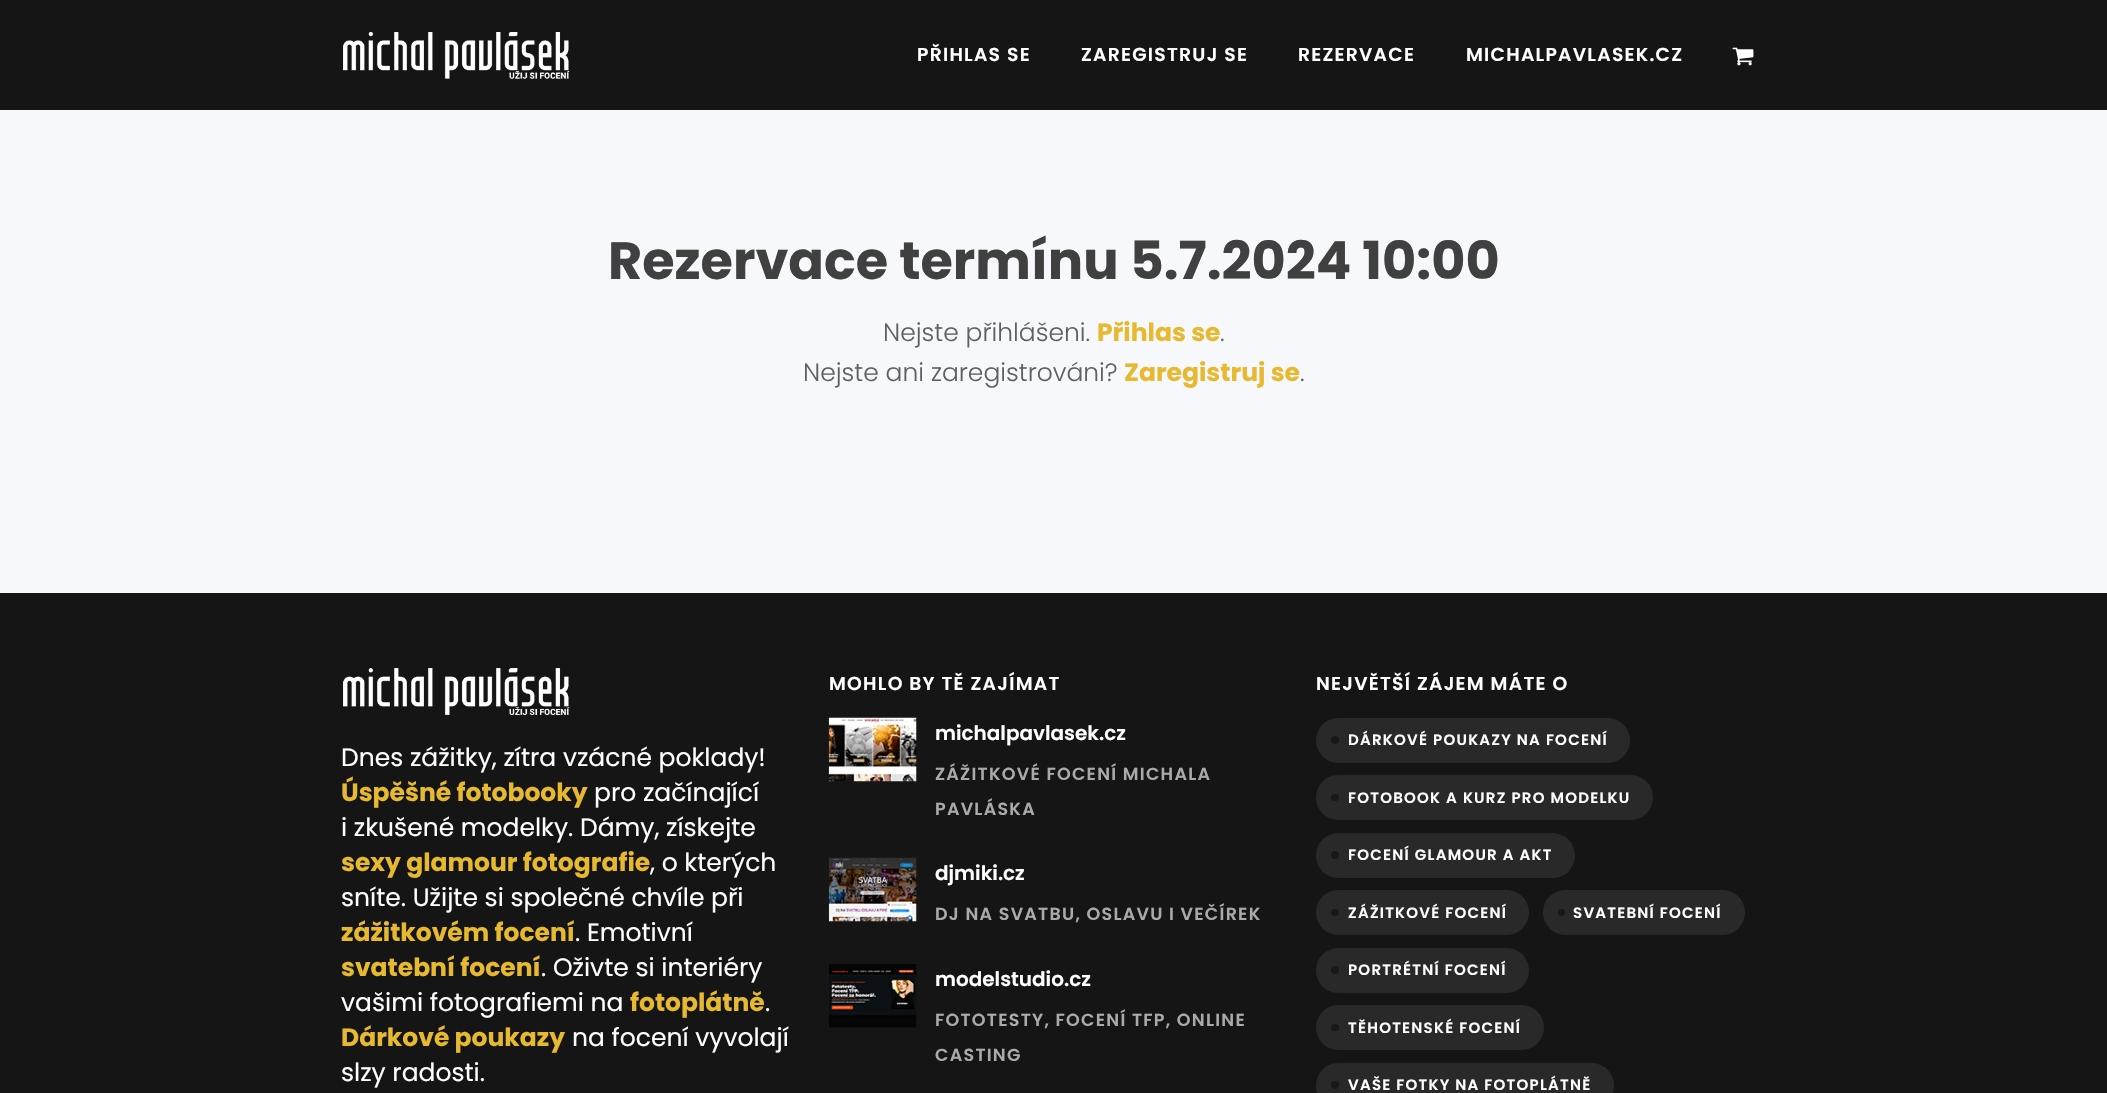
#include "include/core/SkBlurTypes.h"
#include "include/core/SkCanvas.h"
#include "include/core/SkData.h"
#include "include/core/SkFont.h"
#include "include/core/SkFontMgr.h"
#include "include/core/SkImage.h"
#include "include/core/SkMaskFilter.h"
#include "include/core/SkPaint.h"
#include "include/core/SkPathBuilder.h"
#include "include/core/SkTextBlob.h"
#include "include/effects/SkDashPathEffect.h"
#include "include/effects/SkGradientShader.h"
#include "include/utils/SkParsePath.h"

extern sk_sp<SkFontMgr> fontMgr;

static SkFont font(const char* family, int weight, float size, bool italic = false) {
    SkFontStyle style(weight, SkFontStyle::kNormal_Width,
        italic ? SkFontStyle::kItalic_Slant : SkFontStyle::kUpright_Slant);
    SkFont result(fontMgr->matchFamilyStyle(family, style), size);
    result.setSubpixel(true);
    return result;
}

static void drawLabel(SkCanvas* canvas, const char* s, float x, float y, const SkFont& font, SkColor color) {
    SkPaint ink(SkColor4f::FromColor(color));
    ink.setAntiAlias(true);
    canvas->drawString(s, x, y, font, ink);
}

static void drawTracked(SkCanvas* canvas, const char* s, float x, float y, const SkFont& font, const SkPaint& ink, float letter, float word) {
    std::vector<SkGlyphID> glyphs(font.countText(s, strlen(s), SkTextEncoding::kUTF8));
    std::vector<float> xs(glyphs.size());
    font.textToGlyphs(s, strlen(s), SkTextEncoding::kUTF8, glyphs);
    font.getXPos(glyphs, xs, x);
    float extra = 0;
    for (size_t i = 0; i < glyphs.size(); i++) {
        xs[i] += extra;
        extra += letter + word * (glyphs[i] == font.unicharToGlyph(' '));
    }
    canvas->drawTextBlob(SkTextBlob::MakeFromPosHGlyphs(glyphs, xs, y, font), 0, 0, ink);
}

static void fillRect(SkCanvas* canvas, float x, float y, float w, float h, SkColor color) {
    SkPaint ink(SkColor4f::FromColor(color));
    ink.setAntiAlias(true);
    canvas->drawRect(SkRect::MakeXYWH(x, y, w, h), ink);
}

static void fillRRect(SkCanvas* canvas, float x, float y, float w, float h, float radius, SkColor color) {
    SkPaint ink(SkColor4f::FromColor(color));
    ink.setAntiAlias(true);
    canvas->drawRoundRect(SkRect::MakeXYWH(x, y, w, h), radius, radius, ink);
}

static void drawPhoto(SkCanvas* canvas, const char* path, float x, float y, float w, float h) {
    auto image = SkImages::DeferredFromEncodedData(SkData::MakeFromFileName(path));
    canvas->drawImageRect(image, SkRect::MakeXYWH(x, y, w, h), SkSamplingOptions());
}

void draw(SkCanvas* canvas) {
    SkPaint paint;
    paint.setAntiAlias(true);
    canvas->clear(0xFFF7F8FC);
    fillRect(canvas, 0, 0, 2107, 110, 0xFF151515);
    drawPhoto(canvas, "assets/img1.png", 343, 32, 227, 47);
    SkFont font1 = font("Poppins", 600, 18.75f);
    paint.setColor(0xFFFFFFFF);
    drawTracked(canvas, "PŘIHLAS SE", 917, 61, font1, paint, 1.25f, 0);
    drawTracked(canvas, "ZAREGISTRUJ SE", 1081, 61, font1, paint, 1.25f, 0);
    drawTracked(canvas, "REZERVACE", 1298, 61, font1, paint, 1.25f, 0);
    drawTracked(canvas, "MICHALPAVLASEK.CZ", 1466, 61, font1, paint, 1.25f, 0);
    drawPhoto(canvas, "assets/img2.png", 1732, 47, 22, 19);
    SkFont font2 = font("Poppins", 700, 52.5f);
    drawLabel(canvas, "Rezervace termínu 5.7.2024 10:00", 608, 279, font2, 0xFF404040);
    SkFont font3 = font("Poppins", 300, 25);
    drawLabel(canvas, "Nejste přihlášeni.", 883, 341, font3, 0xFF606060);
    SkFont font4 = font("Poppins", 700, 25);
    drawLabel(canvas, "Přihlas se", 1097, 341, font4, 0xFFE7B92F);
    drawLabel(canvas, ".", 1220, 341, font3, 0xFF606060);
    drawLabel(canvas, "Nejste ani zaregistrováni?", 803, 381, font3, 0xFF606060);
    drawLabel(canvas, "Zaregistruj se", 1124, 381, font4, 0xFFE7B92F);
    drawLabel(canvas, ".", 1300, 381, font3, 0xFF606060);
    fillRect(canvas, 0, 593, 2107, 500, 0xFF151515);
    drawPhoto(canvas, "assets/img3.png", 343, 668, 227, 47);
    SkFont font5 = font("Poppins", 400, 25);
    drawLabel(canvas, "Dnes zážitky, zítra vzácné poklady!", 341, 766, font5, 0xFFFFFFFF);
    drawLabel(canvas, "Úspěšné fotobooky", 341, 801, font4, 0xFFE7B92F);
    drawLabel(canvas, "pro začínající", 594, 801, font5, 0xFFFFFFFF);
    drawLabel(canvas, "i zkušené modelky. Dámy, získejte", 341, 836, font5, 0xFFFFFFFF);
    drawLabel(canvas, "sexy glamour fotografie", 341, 871, font4, 0xFFE7B92F);
    drawLabel(canvas, ", o kterých", 650, 871, font5, 0xFFFFFFFF);
    drawLabel(canvas, "sníte. Užijte si společné chvíle při", 341, 906, font5, 0xFFFFFFFF);
    drawLabel(canvas, "zážitkovém focení", 341, 941, font4, 0xFFE7B92F);
    drawLabel(canvas, ". Emotivní", 575, 941, font5, 0xFFFFFFFF);
    drawLabel(canvas, "svatební focení", 341, 976, font4, 0xFFE7B92F);
    drawLabel(canvas, ". Oživte si interiéry", 541, 976, font5, 0xFFFFFFFF);
    drawLabel(canvas, "vašimi fotografiemi na", 341, 1011, font5, 0xFFFFFFFF);
    drawLabel(canvas, "fotoplátně", 630, 1011, font4, 0xFFE7B92F);
    drawLabel(canvas, ".", 765, 1011, font5, 0xFFFFFFFF);
    drawLabel(canvas, "Dárkové poukazy", 341, 1046, font4, 0xFFE7B92F);
    drawLabel(canvas, "na focení vyvolají", 572, 1046, font5, 0xFFFFFFFF);
    drawLabel(canvas, "slzy radosti.", 341, 1081, font5, 0xFFFFFFFF);
    drawTracked(canvas, "MOHLO BY TĚ ZAJÍMAT", 829, 690, font1, paint, 1.25f, 0);
    drawPhoto(canvas, "assets/img4.png", 828, 717, 89, 65);
    SkFont font6 = font("Poppins", 600, 20);
    drawLabel(canvas, "michalpavlasek.cz", 935, 740, font6, 0xFFFFFFFF);
    SkFont font7 = font("Poppins", 600, 17.5f);
    paint.setColor(0xFFAAAAAA);
    drawTracked(canvas, "ZÁŽITKOVÉ FOCENÍ MICHALA", 935, 780, font7, paint, 1.25f, 0);
    drawTracked(canvas, "PAVLÁSKA", 935, 815, font7, paint, 1.25f, 0);
    drawPhoto(canvas, "assets/img5.png", 828, 857, 89, 65);
    drawLabel(canvas, "djmiki.cz", 935, 880, font6, 0xFFFFFFFF);
    drawTracked(canvas, "DJ NA SVATBU, OSLAVU I VEČÍREK", 935, 920, font7, paint, 1.25f, 0);
    drawPhoto(canvas, "assets/img6.png", 829, 964, 88, 64);
    drawLabel(canvas, "modelstudio.cz", 935, 986, font6, 0xFFFFFFFF);
    drawTracked(canvas, "FOTOTESTY, FOCENÍ TFP, ONLINE", 935, 1026, font7, paint, 1.25f, 0);
    drawTracked(canvas, "CASTING", 935, 1061, font7, paint, 1.25f, 0);
    paint.setColor(0xFFFFFFFF);
    drawTracked(canvas, "NEJVĚTŠÍ ZÁJEM MÁTE O", 1316, 690, font1, paint, 1.25f, 0);
    fillRRect(canvas, 1316, 718, 314, 45, 22.5f, 0xFF292929);
    paint.setColor(0xFF181818);
    canvas->drawCircle(1335, 740, 4, paint);
    SkFont font8 = font("Poppins", 600, 15);
    paint.setColor(0xFFFFFFFF);
    drawTracked(canvas, "DÁRKOVÉ POUKAZY NA FOCENÍ", 1348, 745, font8, paint, 1.25f, 0);
    fillRRect(canvas, 1316, 775, 337, 45, 22.5f, 0xFF292929);
    fillRRect(canvas, 1331, 794, 8, 7, 3.5f, 0xFF181818);
    drawTracked(canvas, "FOTOBOOK A KURZ PRO MODELKU", 1348, 803, font8, paint, 1.25f, 0);
    fillRRect(canvas, 1316, 833, 259, 45, 22.5f, 0xFF292929);
    paint.setColor(0xFF181818);
    canvas->drawCircle(1335, 855, 4, paint);
    paint.setColor(0xFFFFFFFF);
    drawTracked(canvas, "FOCENÍ GLAMOUR A AKT", 1348, 860, font8, paint, 1.25f, 0);
    fillRRect(canvas, 1316, 890, 213, 45, 22.5f, 0xFF292929);
    fillRRect(canvas, 1331, 909, 8, 7, 3.5f, 0xFF181818);
    drawTracked(canvas, "ZÁŽITKOVÉ FOCENÍ", 1348, 918, font8, paint, 1.25f, 0);
    fillRRect(canvas, 1543, 890, 202, 45, 22.5f, 0xFF292929);
    paint.setColor(0xFF181818);
    canvas->drawCircle(1561.5f, 912.5f, 3.5f, paint);
    paint.setColor(0xFFFFFFFF);
    drawTracked(canvas, "SVATEBNÍ FOCENÍ", 1573, 918, font8, paint, 1.25f, 0);
    fillRRect(canvas, 1316, 948, 213, 45, 22.5f, 0xFF292929);
    paint.setColor(0xFF181818);
    canvas->drawCircle(1335, 970, 4, paint);
    paint.setColor(0xFFFFFFFF);
    drawTracked(canvas, "PORTRÉTNÍ FOCENÍ", 1348, 975, font8, paint, 1.25f, 0);
    fillRRect(canvas, 1316, 1005, 228, 45, 22.5f, 0xFF292929);
    fillRRect(canvas, 1331, 1024, 8, 7, 3.5f, 0xFF181818);
    drawTracked(canvas, "TĚHOTENSKÉ FOCENÍ", 1348, 1033, font8, paint, 1.25f, 0);
    fillRRect(canvas, 1316, 1063, 298, 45, 22.5f, 0xFF292929);
    paint.setColor(0xFF181818);
    canvas->drawCircle(1335, 1085, 4, paint);
    paint.setColor(0xFFFFFFFF);
    drawTracked(canvas, "VAŠE FOTKY NA FOTOPLÁTNĚ", 1348, 1090, font8, paint, 1.25f, 0);
}
